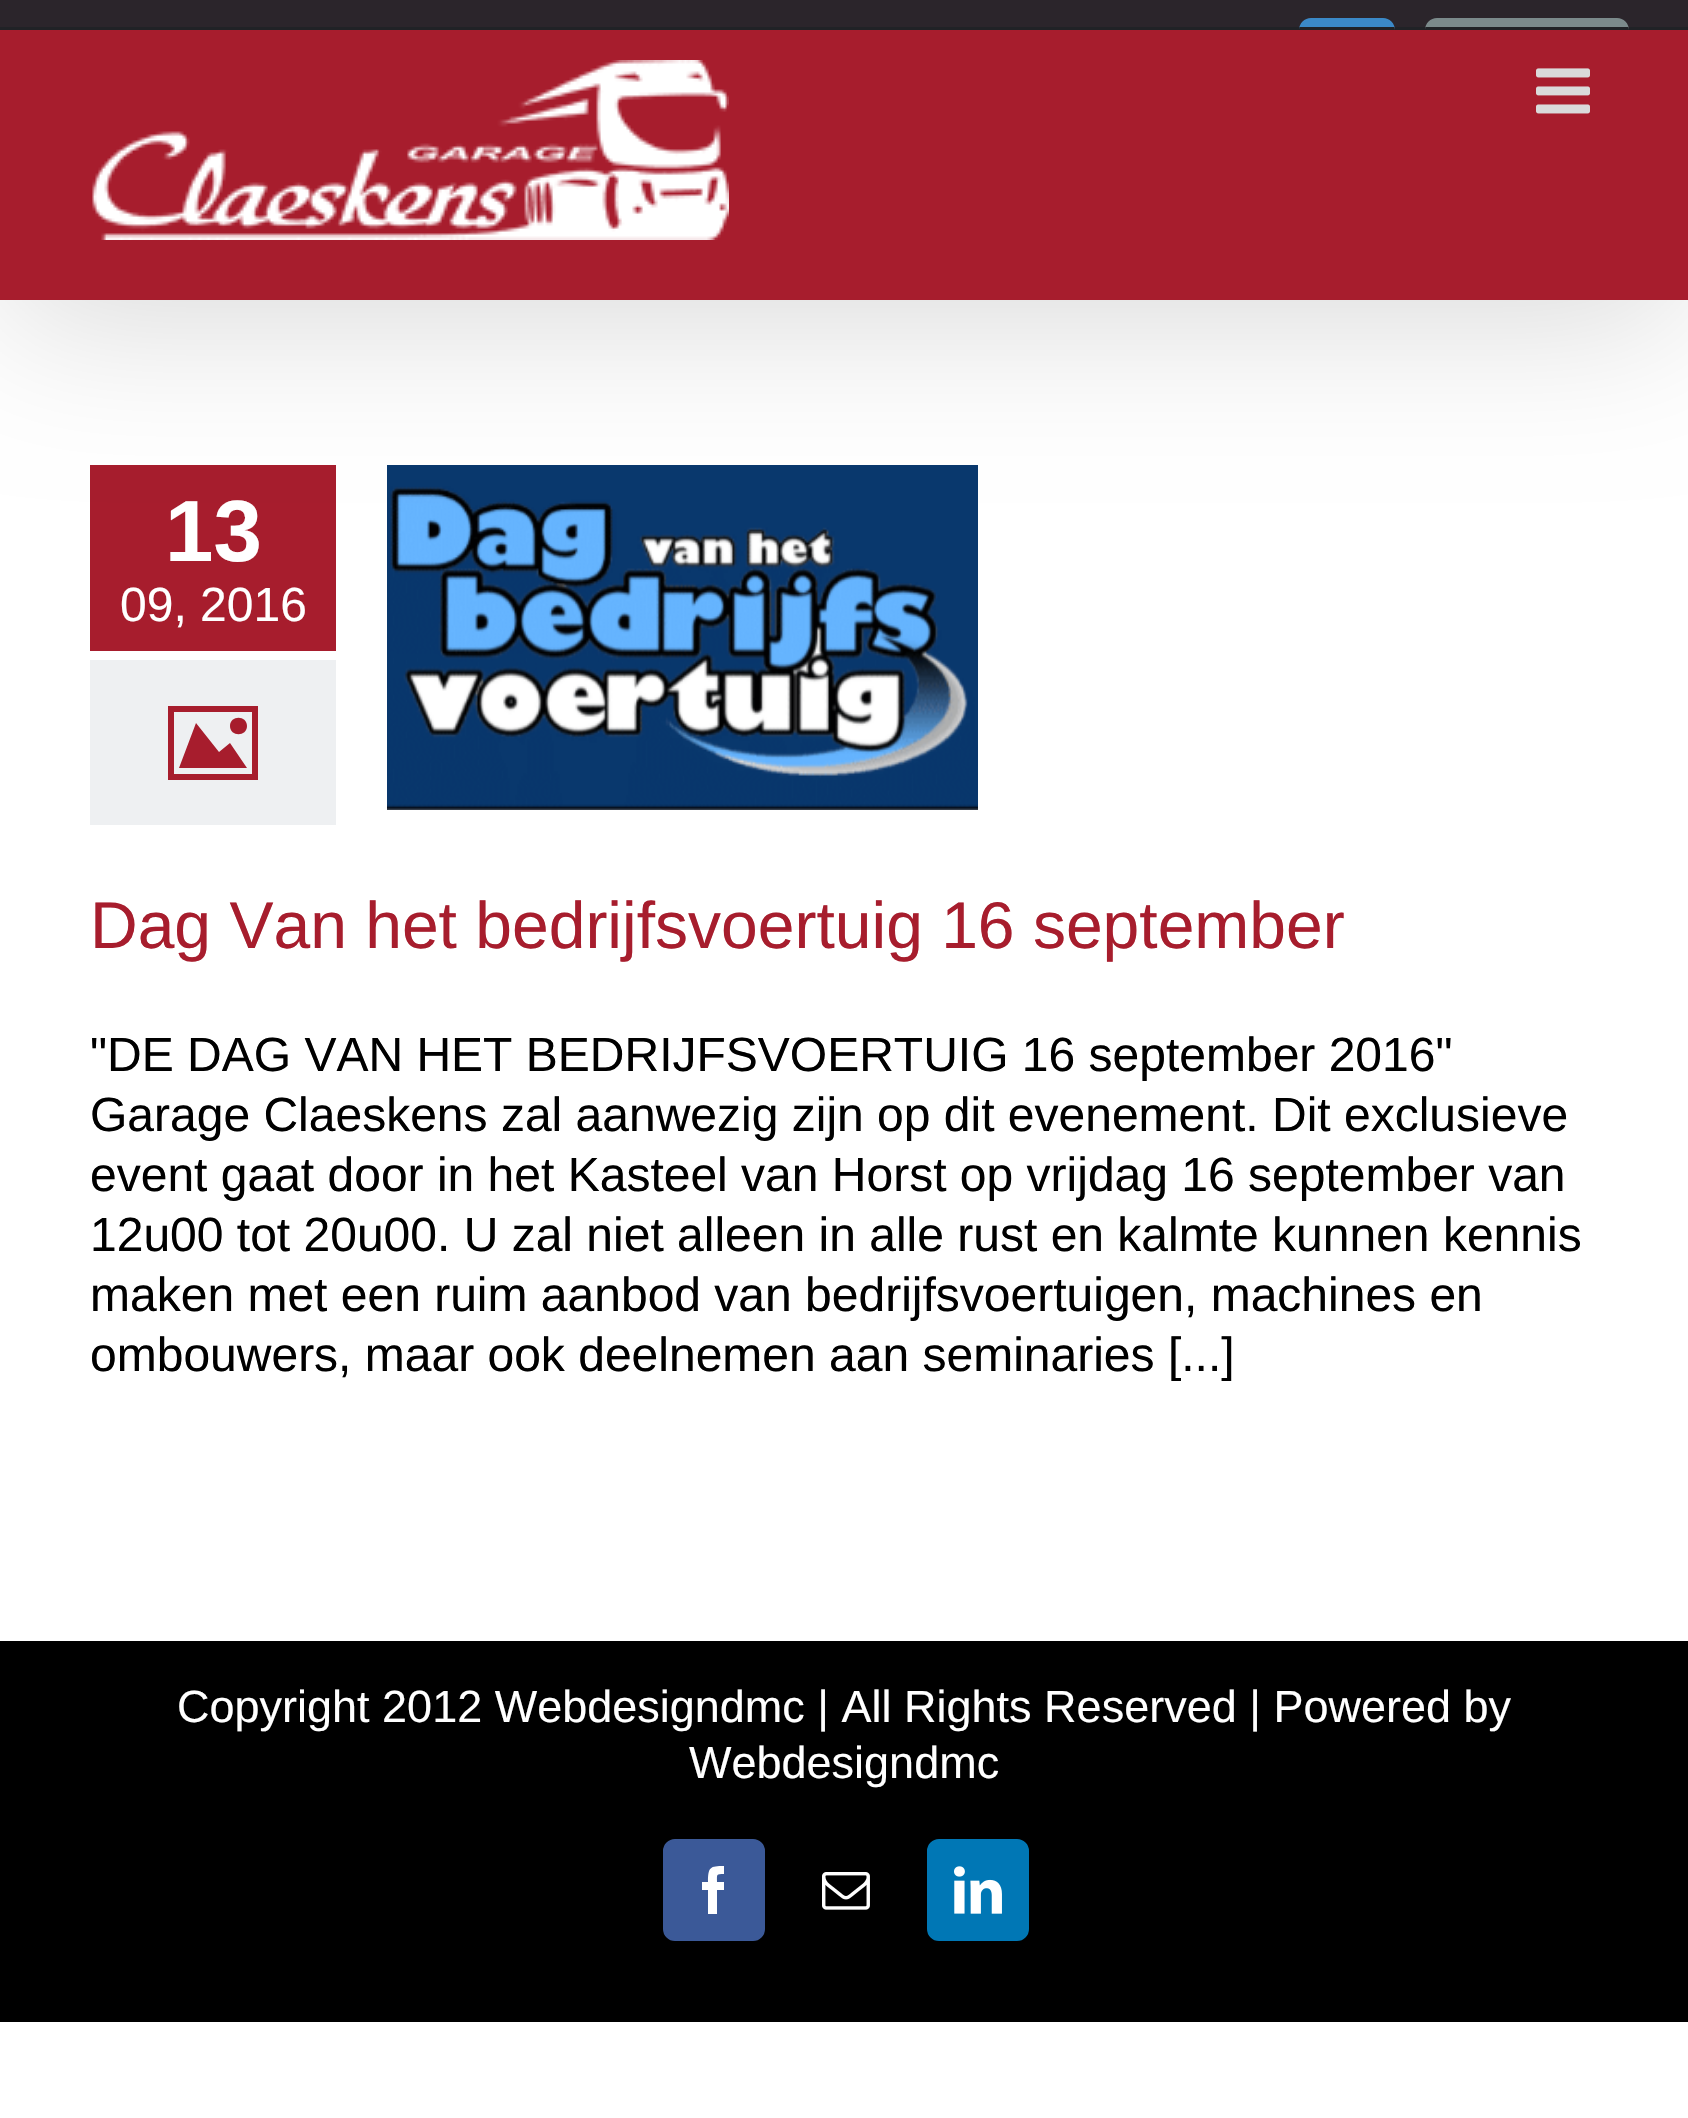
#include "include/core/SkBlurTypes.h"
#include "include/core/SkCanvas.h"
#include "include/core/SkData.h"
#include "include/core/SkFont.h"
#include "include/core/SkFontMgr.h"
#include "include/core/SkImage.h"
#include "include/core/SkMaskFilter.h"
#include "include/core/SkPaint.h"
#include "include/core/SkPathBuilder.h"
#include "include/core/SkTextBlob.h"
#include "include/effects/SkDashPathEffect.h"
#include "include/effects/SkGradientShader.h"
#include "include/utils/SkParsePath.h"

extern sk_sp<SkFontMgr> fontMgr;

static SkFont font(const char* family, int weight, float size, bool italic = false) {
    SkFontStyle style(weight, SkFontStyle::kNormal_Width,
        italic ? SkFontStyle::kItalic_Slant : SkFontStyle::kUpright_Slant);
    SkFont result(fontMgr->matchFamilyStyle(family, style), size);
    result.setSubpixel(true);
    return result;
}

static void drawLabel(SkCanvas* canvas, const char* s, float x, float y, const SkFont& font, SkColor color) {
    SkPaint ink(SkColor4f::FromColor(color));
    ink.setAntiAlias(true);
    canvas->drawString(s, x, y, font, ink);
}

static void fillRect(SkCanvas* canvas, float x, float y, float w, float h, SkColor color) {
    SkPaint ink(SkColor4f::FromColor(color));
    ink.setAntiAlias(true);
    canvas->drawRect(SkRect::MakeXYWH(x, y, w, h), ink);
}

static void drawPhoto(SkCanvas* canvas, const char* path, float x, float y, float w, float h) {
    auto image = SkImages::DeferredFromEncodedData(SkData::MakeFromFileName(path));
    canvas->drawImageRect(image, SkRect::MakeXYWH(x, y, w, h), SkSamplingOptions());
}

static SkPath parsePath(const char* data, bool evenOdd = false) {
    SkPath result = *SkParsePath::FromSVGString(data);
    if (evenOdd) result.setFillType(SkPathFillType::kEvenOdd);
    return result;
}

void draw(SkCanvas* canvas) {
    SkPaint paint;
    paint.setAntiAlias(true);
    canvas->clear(0xFFFFFFFF);
    fillRect(canvas, 90, 465, 246, 186, 0xFFA71D2D);
    drawPhoto(canvas, "assets/img3.png", 387, 465, 591, 345);
    paint.setColor(0x24000000);
    paint.setMaskFilter(SkMaskFilter::MakeBlur(kNormal_SkBlurStyle, 75));
    canvas->drawRect(SkRect::MakeXYWH(6, 36, 1677, 288), paint);
    paint.setMaskFilter(nullptr);
    fillRect(canvas, 0, 27, 1688, 3, 0xFF202226);
    fillRect(canvas, 0, 0, 1688, 27, 0xFF2B252B);
    paint.setColor(0xFF3B89C7);
    canvas->drawPath(parsePath("M1311 18H1383C1389.5 18 1395 23.5 1395 30V27H1299V30C1299 23.5 1304.5 18 1311 18Z"), paint);
    paint.setColor(0xFF7B8A8B);
    canvas->drawPath(parsePath("M1437 18H1617C1623.5 18 1629 23.5 1629 30V27H1425V30C1425 23.5 1430.5 18 1437 18Z"), paint);
    fillRect(canvas, 0, 30, 1688, 270, 0xFFA71D2D);
    drawPhoto(canvas, "assets/img1.png", 92, 60, 637, 180);
    drawPhoto(canvas, "assets/img2.png", 1536, 68, 54, 46);
    SkFont font1 = font("Liberation Sans", 700, 87);
    drawLabel(canvas, "13", 165, 561, font1, 0xFFFFFFFF);
    SkFont font2 = font("Liberation Sans", 400, 48);
    drawLabel(canvas, "09, 2016", 120, 621, font2, 0xFFFFFFFF);
    fillRect(canvas, 90, 660, 246, 165, 0xFFEEF0F2);
    paint.setColor(0xFFA71D2D);
    canvas->drawPath(parsePath("M168 706V780H258V706ZM252 774H174V712H252ZM230 726C230 715 247 715 247 726C247 737 230 737 230 726ZM247 768H179L196 723L219 752L230 743Z"), paint);
    SkFont font3 = font("Liberation Sans", 400, 66);
    drawLabel(canvas, "Dag Van het bedrijfsvoertuig 16 september", 90, 948, font3, 0xFFA71D2D);
    drawLabel(canvas, "\"DE DAG VAN HET BEDRIJFSVOERTUIG 16 september 2016\"", 90, 1071, font2, 0xFF000000);
    drawLabel(canvas, "Garage Claeskens zal aanwezig zijn op dit evenement. Dit exclusieve", 90, 1131, font2, 0xFF000000);
    drawLabel(canvas, "event gaat door in het Kasteel van Horst op vrijdag 16 september van", 90, 1191, font2, 0xFF000000);
    drawLabel(canvas, "12u00 tot 20u00. U zal niet alleen in alle rust en kalmte kunnen kennis", 90, 1251, font2, 0xFF000000);
    drawLabel(canvas, "maken met een ruim aanbod van bedrijfsvoertuigen, machines en", 90, 1311, font2, 0xFF000000);
    drawLabel(canvas, "ombouwers, maar ook deelnemen aan seminaries [...]", 90, 1371, font2, 0xFF000000);
    fillRect(canvas, 0, 1641, 1688, 381, 0xFF000000);
    SkFont font4 = font("Liberation Sans", 400, 45);
    drawLabel(canvas, "Copyright 2012 Webdesigndmc | All Rights Reserved | Powered by", 177, 1722, font4, 0xFFFFFFFF);
    drawLabel(canvas, "Webdesigndmc", 689, 1778, font4, 0xFFFFFFFF);
    paint.setColor(0xFF3B5998);
    canvas->drawRoundRect(SkRect::MakeXYWH(664.5f, 1840.5f, 99, 99), 10.5f, 10.5f, paint);
    paint.setStroke(true);
    paint.setStrokeWidth(3);
    canvas->drawRoundRect(SkRect::MakeXYWH(664.5f, 1840.5f, 99, 99), 10.5f, 10.5f, paint);
    paint.setStroke(false);
    paint.setColor(0xFFFFFFFF);
    canvas->drawPath(parsePath("M717 1914H708V1890H702V1882H708C708 1867 710 1866 724 1866V1874C716 1874 717 1874 717 1882H724V1890H717Z"), paint);
    drawPhoto(canvas, "assets/img4.png", 822, 1872, 48, 38);
    paint.setColor(0xFF0077B5);
    canvas->drawRoundRect(SkRect::MakeXYWH(928.5f, 1840.5f, 99, 99), 10.5f, 10.5f, paint);
    paint.setStroke(true);
    canvas->drawRoundRect(SkRect::MakeXYWH(928.5f, 1840.5f, 99, 99), 10.5f, 10.5f, paint);
    drawPhoto(canvas, "assets/img5.png", 954, 1866, 48, 48);
}
